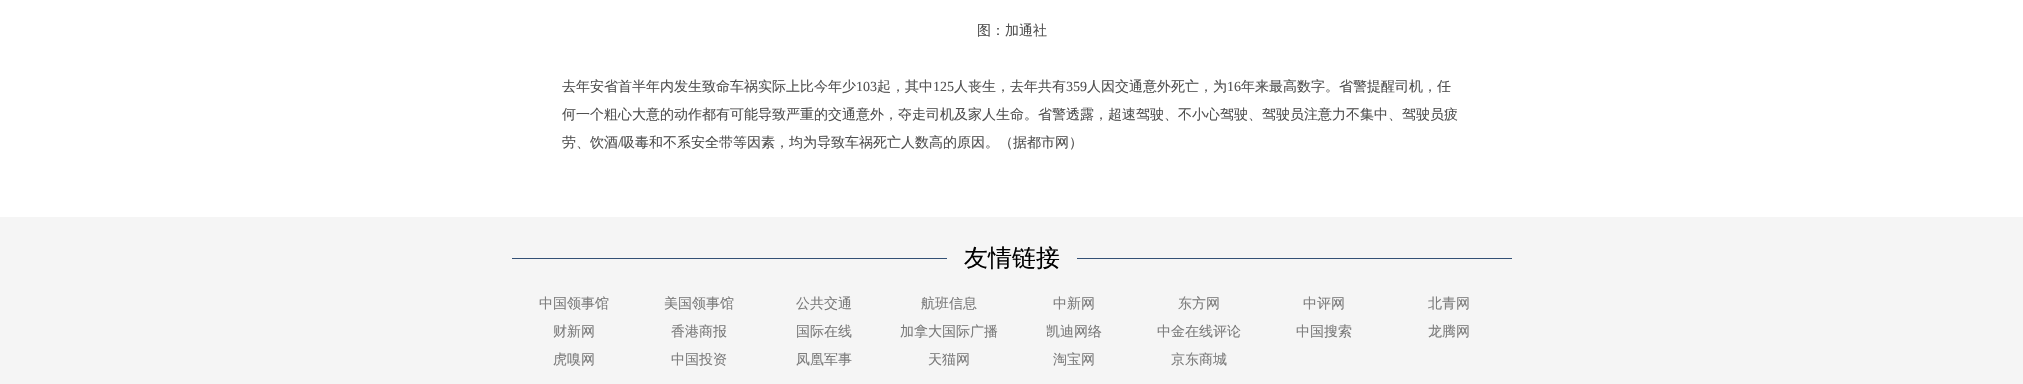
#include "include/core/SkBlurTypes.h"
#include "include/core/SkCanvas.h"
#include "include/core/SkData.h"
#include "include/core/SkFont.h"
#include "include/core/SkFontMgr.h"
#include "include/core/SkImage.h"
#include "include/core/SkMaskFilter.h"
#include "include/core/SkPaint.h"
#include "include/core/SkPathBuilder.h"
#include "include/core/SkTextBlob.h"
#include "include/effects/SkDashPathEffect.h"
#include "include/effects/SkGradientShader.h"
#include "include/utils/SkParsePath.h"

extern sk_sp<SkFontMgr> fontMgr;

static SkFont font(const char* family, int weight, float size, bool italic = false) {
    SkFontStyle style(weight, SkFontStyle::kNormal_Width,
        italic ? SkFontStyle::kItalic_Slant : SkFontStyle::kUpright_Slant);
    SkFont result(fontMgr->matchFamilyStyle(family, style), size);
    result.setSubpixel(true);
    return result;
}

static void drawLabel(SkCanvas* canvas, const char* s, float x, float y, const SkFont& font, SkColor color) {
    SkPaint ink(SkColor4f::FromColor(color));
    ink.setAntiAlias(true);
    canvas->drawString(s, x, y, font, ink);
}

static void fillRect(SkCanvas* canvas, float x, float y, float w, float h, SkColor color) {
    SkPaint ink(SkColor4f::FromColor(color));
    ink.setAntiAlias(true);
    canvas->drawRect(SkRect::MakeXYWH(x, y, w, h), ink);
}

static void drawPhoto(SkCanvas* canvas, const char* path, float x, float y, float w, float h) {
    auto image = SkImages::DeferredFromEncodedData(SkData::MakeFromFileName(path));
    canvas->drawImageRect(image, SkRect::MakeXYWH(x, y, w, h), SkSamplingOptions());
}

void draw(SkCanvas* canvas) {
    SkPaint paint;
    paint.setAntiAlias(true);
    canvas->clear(0xFFFFFFFF);
    SkFont font1 = font("WenQuanYi Zen Hei", 500, 14);
    drawLabel(canvas, "图：加通社", 977, 35, font1, 0xFF505050);
    drawLabel(canvas, "去年安省首半年内发生致命车祸实际上比今年少", 562, 91, font1, 0xFF505050);
    SkFont font2 = font("Liberation Serif", 400, 14);
    drawLabel(canvas, "103", 856, 91, font2, 0xFF505050);
    drawLabel(canvas, "起，其中", 877, 91, font1, 0xFF505050);
    drawLabel(canvas, "125", 933, 91, font2, 0xFF505050);
    drawLabel(canvas, "人丧生，去年共有", 954, 91, font1, 0xFF505050);
    drawLabel(canvas, "359", 1066, 91, font2, 0xFF505050);
    drawLabel(canvas, "人因交通意外死亡，为", 1087, 91, font1, 0xFF505050);
    drawLabel(canvas, "16", 1227, 91, font2, 0xFF505050);
    drawLabel(canvas, "年来最高数字。省警提醒司机，任", 1241, 91, font1, 0xFF505050);
    drawLabel(canvas, "何一个粗心大意的动作都有可能导致严重的交通意外，夺走司机及家人生命。省警透露，超速驾驶、不小心驾驶、驾驶员注意力不集中、驾驶员疲", 562, 119, font1, 0xFF505050);
    drawLabel(canvas, "劳、饮酒", 562, 147, font1, 0xFF505050);
    drawLabel(canvas, "/", 618, 147, font2, 0xFF505050);
    drawLabel(canvas, "吸毒和不系安全带等因素，均为导致车祸死亡人数高的原因。（据都市网）", 621, 147, font1, 0xFF505050);
    fillRect(canvas, 0, 217, 2023, 167, 0xFFF5F5F5);
    drawPhoto(canvas, "assets/img1.png", 512, 258, 1000, 1);
    SkFont font3 = font("WenQuanYi Zen Hei", 500, 24);
    drawLabel(canvas, "友情链接", 964, 266, font3, 0xFF000000);
    drawLabel(canvas, "中国领事馆", 539, 308, font1, 0xFF7B7B7B);
    drawLabel(canvas, "美国领事馆", 664, 308, font1, 0xFF7B7B7B);
    drawLabel(canvas, "公共交通", 796, 308, font1, 0xFF7B7B7B);
    drawLabel(canvas, "航班信息", 921, 308, font1, 0xFF7B7B7B);
    drawLabel(canvas, "中新网", 1053, 308, font1, 0xFF7B7B7B);
    drawLabel(canvas, "东方网", 1178, 308, font1, 0xFF7B7B7B);
    drawLabel(canvas, "中评网", 1303, 308, font1, 0xFF7B7B7B);
    drawLabel(canvas, "北青网", 1428, 308, font1, 0xFF7B7B7B);
    drawLabel(canvas, "财新网", 553, 336, font1, 0xFF7B7B7B);
    drawLabel(canvas, "香港商报", 671, 336, font1, 0xFF7B7B7B);
    drawLabel(canvas, "国际在线", 796, 336, font1, 0xFF7B7B7B);
    drawLabel(canvas, "加拿大国际广播", 900, 336, font1, 0xFF7B7B7B);
    drawLabel(canvas, "凯迪网络", 1046, 336, font1, 0xFF7B7B7B);
    drawLabel(canvas, "中金在线评论", 1157, 336, font1, 0xFF7B7B7B);
    drawLabel(canvas, "中国搜索", 1296, 336, font1, 0xFF7B7B7B);
    drawLabel(canvas, "龙腾网", 1428, 336, font1, 0xFF7B7B7B);
    drawLabel(canvas, "虎嗅网", 553, 364, font1, 0xFF7B7B7B);
    drawLabel(canvas, "中国投资", 671, 364, font1, 0xFF7B7B7B);
    drawLabel(canvas, "凤凰军事", 796, 364, font1, 0xFF7B7B7B);
    drawLabel(canvas, "天猫网", 928, 364, font1, 0xFF7B7B7B);
    drawLabel(canvas, "淘宝网", 1053, 364, font1, 0xFF7B7B7B);
    drawLabel(canvas, "京东商城", 1171, 364, font1, 0xFF7B7B7B);
}
